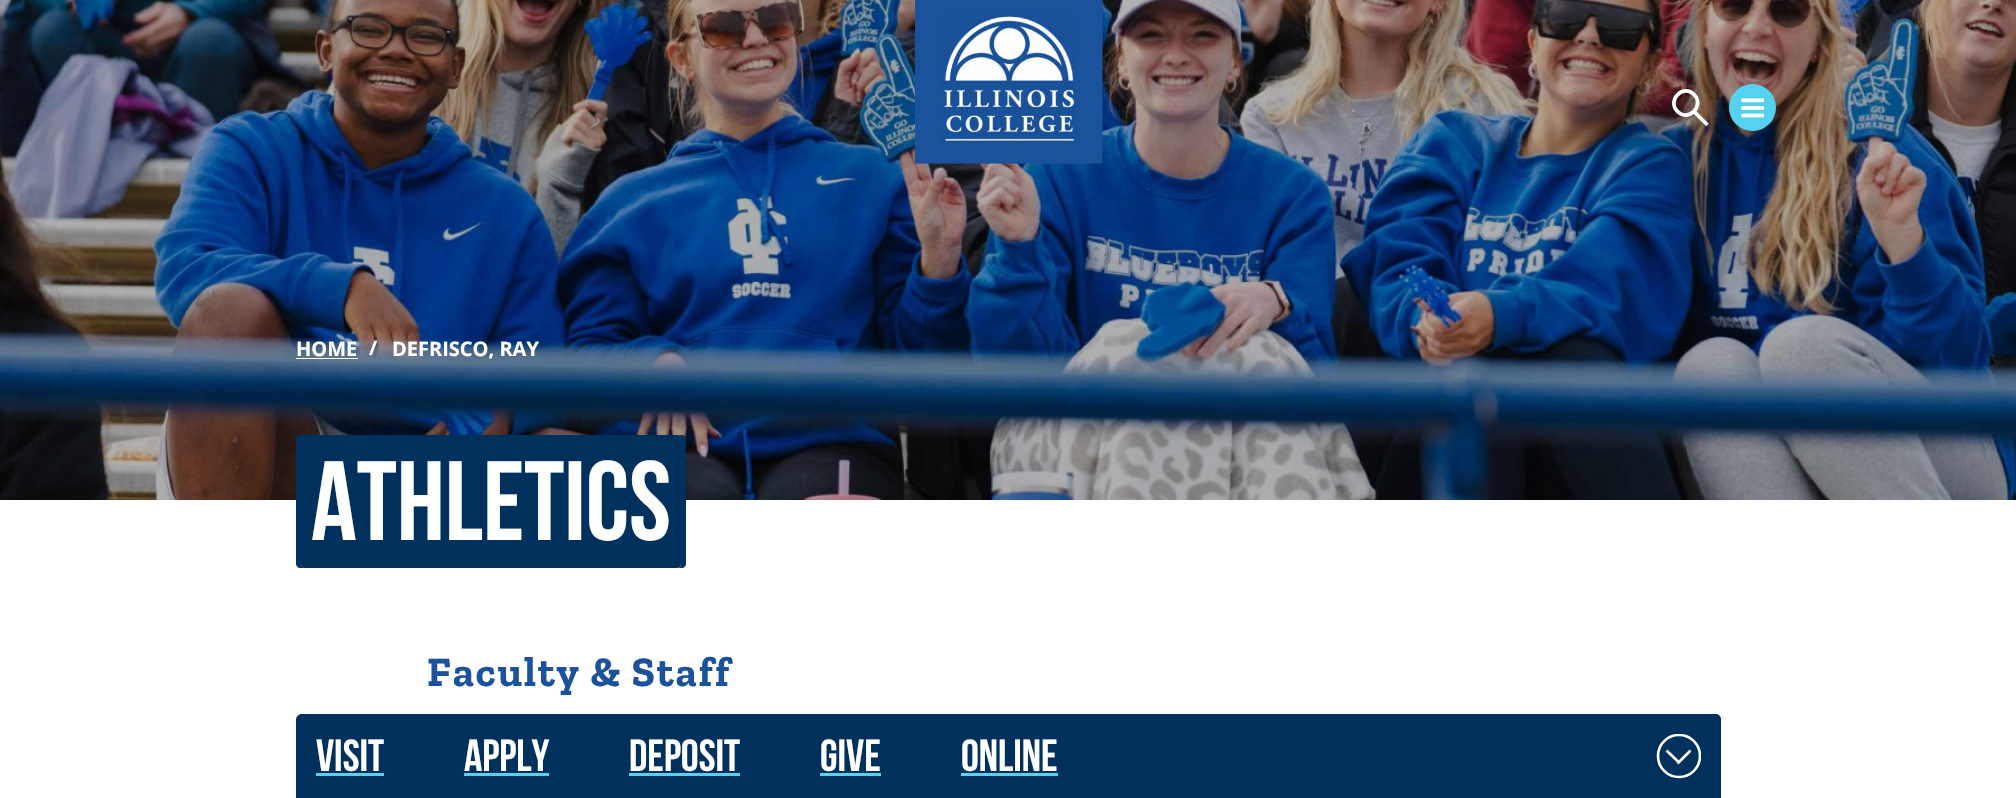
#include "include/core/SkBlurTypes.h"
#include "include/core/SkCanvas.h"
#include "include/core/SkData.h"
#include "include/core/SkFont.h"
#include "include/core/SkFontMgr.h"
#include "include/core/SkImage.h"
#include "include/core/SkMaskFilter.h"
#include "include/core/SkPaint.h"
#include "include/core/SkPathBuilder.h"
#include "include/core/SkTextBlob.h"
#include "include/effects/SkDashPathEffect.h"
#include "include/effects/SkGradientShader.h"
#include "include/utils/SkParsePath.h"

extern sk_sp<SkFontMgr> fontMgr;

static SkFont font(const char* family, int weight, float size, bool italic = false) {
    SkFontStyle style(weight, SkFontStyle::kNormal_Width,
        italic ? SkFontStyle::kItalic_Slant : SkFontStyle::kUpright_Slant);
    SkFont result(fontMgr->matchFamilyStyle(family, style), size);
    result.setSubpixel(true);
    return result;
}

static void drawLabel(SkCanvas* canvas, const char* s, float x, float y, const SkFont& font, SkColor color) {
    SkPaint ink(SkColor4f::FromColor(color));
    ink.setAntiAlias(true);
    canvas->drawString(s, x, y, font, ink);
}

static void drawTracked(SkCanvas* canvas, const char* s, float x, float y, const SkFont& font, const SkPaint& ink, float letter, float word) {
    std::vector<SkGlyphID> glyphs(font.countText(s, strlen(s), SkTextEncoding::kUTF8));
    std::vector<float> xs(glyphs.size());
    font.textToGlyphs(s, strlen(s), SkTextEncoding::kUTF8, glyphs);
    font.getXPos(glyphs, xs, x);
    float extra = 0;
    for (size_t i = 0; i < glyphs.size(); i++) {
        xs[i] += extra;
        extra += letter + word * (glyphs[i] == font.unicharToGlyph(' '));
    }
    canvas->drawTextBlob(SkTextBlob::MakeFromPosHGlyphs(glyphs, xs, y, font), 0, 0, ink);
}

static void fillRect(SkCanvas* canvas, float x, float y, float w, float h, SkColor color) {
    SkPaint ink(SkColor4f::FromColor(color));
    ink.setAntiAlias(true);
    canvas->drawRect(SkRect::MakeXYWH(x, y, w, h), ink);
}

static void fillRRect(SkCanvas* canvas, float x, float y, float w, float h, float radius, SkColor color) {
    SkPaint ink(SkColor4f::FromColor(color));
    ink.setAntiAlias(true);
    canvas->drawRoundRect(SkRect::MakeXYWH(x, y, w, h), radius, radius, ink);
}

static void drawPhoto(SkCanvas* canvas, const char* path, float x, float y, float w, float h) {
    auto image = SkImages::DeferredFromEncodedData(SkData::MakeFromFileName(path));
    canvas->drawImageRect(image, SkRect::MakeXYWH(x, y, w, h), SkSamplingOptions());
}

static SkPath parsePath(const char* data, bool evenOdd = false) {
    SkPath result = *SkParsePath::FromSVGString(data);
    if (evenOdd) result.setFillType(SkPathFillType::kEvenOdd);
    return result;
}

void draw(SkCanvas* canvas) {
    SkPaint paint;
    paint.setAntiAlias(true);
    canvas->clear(0xFFFFFFFF);
    drawPhoto(canvas, "assets/img3.png", 0, 0, 2016, 500);
    drawPhoto(canvas, "assets/img1.png", 915, 0, 188, 164);
    paint.setColor(0xFF56D2F1);
    canvas->drawCircle(1752.5f, 107.5f, 23.5f, paint);
    paint.setStroke(true);
    paint.setStrokeWidth(3.7f);
    paint.setColor(0xFFFFFFFF);
    canvas->drawPath(parsePath("M1694 94.5C1705 105.5 1688.5 122.5 1677.5 111.5C1666.5 100.5 1683 83.5 1694 94.5ZM1694 111.5L1707.5 125"), paint);
    drawPhoto(canvas, "assets/img2.png", 1741, 98, 24, 20);
    SkFont font1 = font("Open Sans", 700, 20);
    drawLabel(canvas, "HOME", 296, 356, font1, 0xFFFFFFFF);
    fillRect(canvas, 296, 358, 62, 1, 0xFFFFFFFF);
    drawLabel(canvas, "/", 369, 355, font1, 0xFFFFFFFF);
    drawLabel(canvas, "DEFRISCO, RAY", 392, 356, font1, 0xFFFFFFFF);
    paint.setStroke(false);
    paint.setColor(0xFF00305C);
    canvas->drawPath(parsePath("M300 435C298 435 296 437 296 439V564C296 566 298 568 300 568H672H674H305C303 568 301 566 301 564V439C301 437 303 435 305 435Z"), paint);
    canvas->drawPath(parsePath("M308 568H310H682C684 568 686 566 686 564V439C686 437 684 435 682 435H678C680 435 681 437 681 439V564C681 566 680 568 678 568Z"), paint);
    fillRRect(canvas, 301, 435, 380, 133, 4, 0xFF00305C);
    SkFont font2 = font("Bebas Neue", 700, 112.5f);
    drawLabel(canvas, "Athletics", 311, 540, font2, 0xFFFFFFFF);
    SkFont font3 = font("Zilla Slab", 700, 42);
    paint.setColor(0xFF1A529B);
    drawTracked(canvas, "Faculty & Staff", 427, 686, font3, paint, 1.9f, 0);
    paint.setColor(0xFF00305C);
    canvas->drawPath(parsePath("M302 714H1715C1718.5 714 1721 716.5 1721 720V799H296V720C296 716.5 298.5 714 302 714Z"), paint);
    SkFont font4 = font("Bebas Neue", 700, 45);
    drawLabel(canvas, "Visit", 316, 771, font4, 0xFFFFFFFF);
    fillRect(canvas, 316, 773, 68, 3, 0xFF56D2F1);
    drawLabel(canvas, "Apply", 464, 771, font4, 0xFFFFFFFF);
    fillRect(canvas, 464, 773, 85, 3, 0xFF56D2F1);
    drawLabel(canvas, "Deposit", 629, 771, font4, 0xFFFFFFFF);
    fillRect(canvas, 629, 773, 111, 3, 0xFF56D2F1);
    drawLabel(canvas, "Give", 820, 771, font4, 0xFFFFFFFF);
    fillRect(canvas, 820, 773, 61, 3, 0xFF56D2F1);
    drawLabel(canvas, "Online", 961, 771, font4, 0xFFFFFFFF);
    fillRect(canvas, 961, 773, 97, 3, 0xFF56D2F1);
    canvas->drawPath(parsePath("M1642 714H1715C1718.5 714 1721 716.5 1721 720V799H1636V720C1636 716.5 1638.5 714 1642 714Z"), paint);
    canvas->save();
    canvas->clipRect(SkRect::MakeXYWH(1656, 734, 45, 45));
    paint.setStroke(true);
    paint.setStrokeWidth(2.6f);
    paint.setColor(0xFFFFFFFF);
    canvas->drawCircle(1679, 756, 21, paint);
    canvas->restore();
    canvas->drawPath(parsePath("M1666.5 750.5L1678.5 762M1690.5 750.5L1677.5 763.5"), paint);
}
